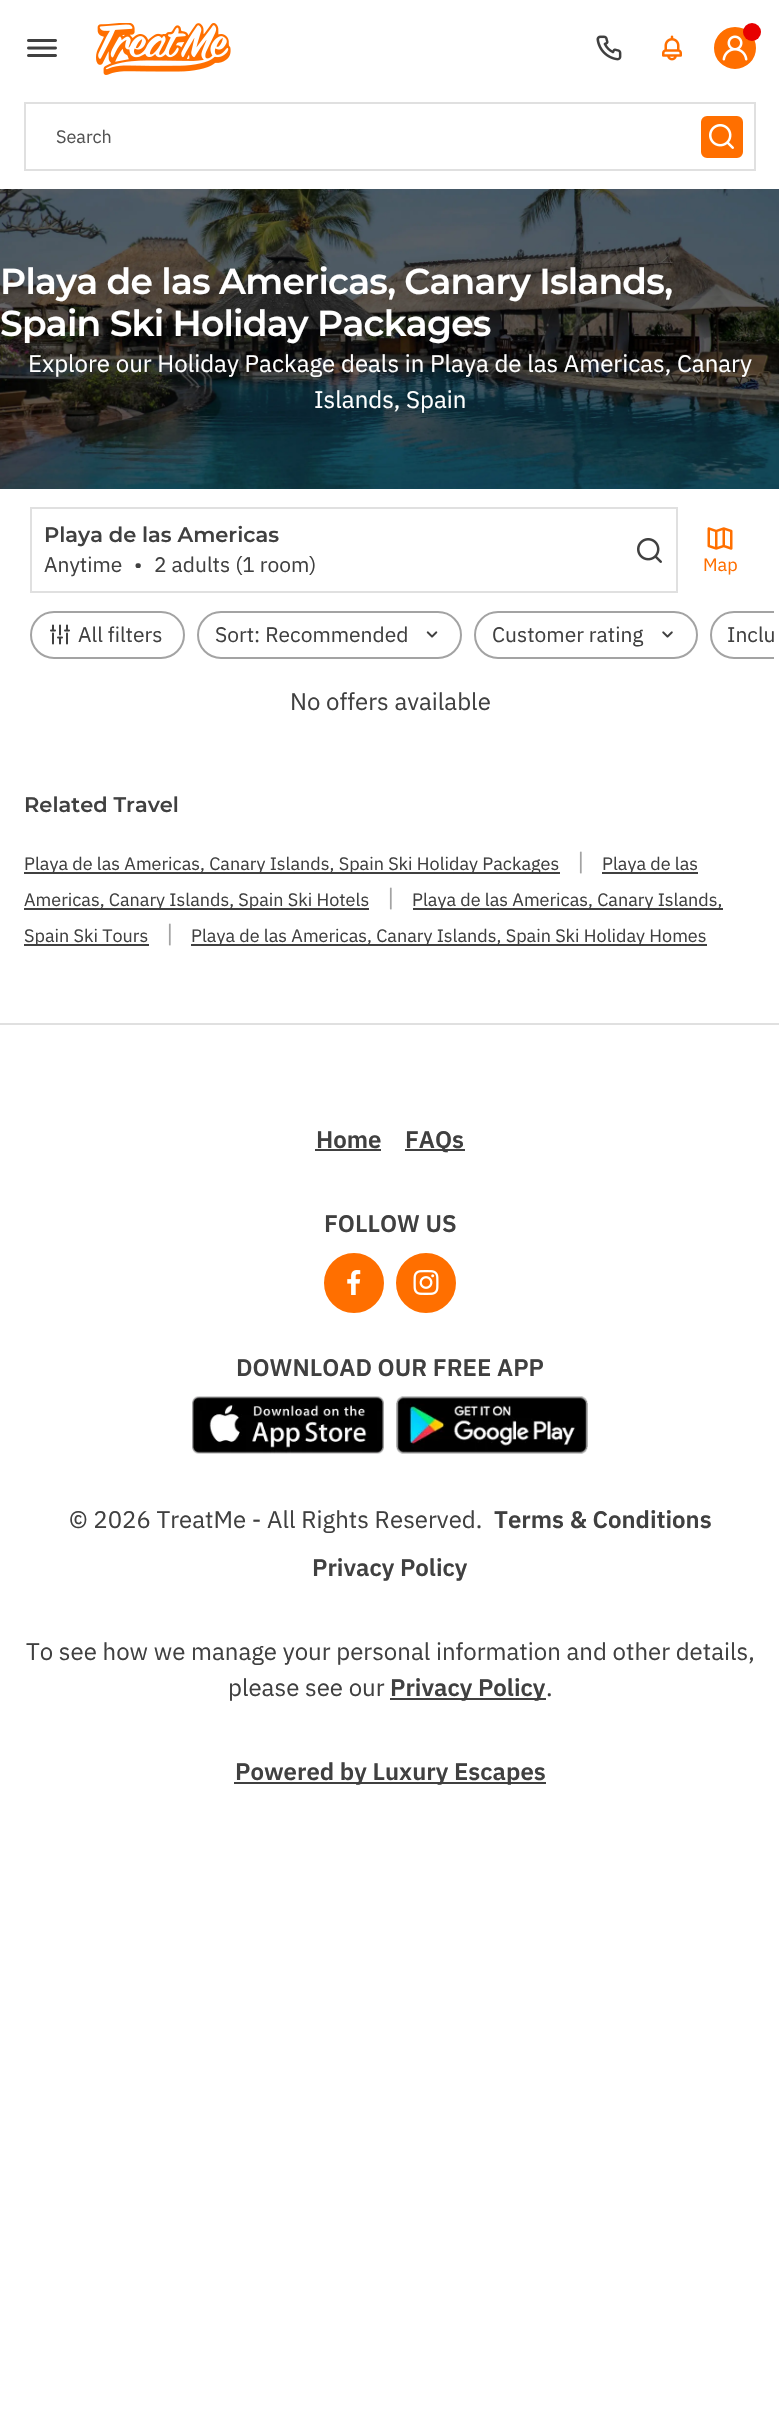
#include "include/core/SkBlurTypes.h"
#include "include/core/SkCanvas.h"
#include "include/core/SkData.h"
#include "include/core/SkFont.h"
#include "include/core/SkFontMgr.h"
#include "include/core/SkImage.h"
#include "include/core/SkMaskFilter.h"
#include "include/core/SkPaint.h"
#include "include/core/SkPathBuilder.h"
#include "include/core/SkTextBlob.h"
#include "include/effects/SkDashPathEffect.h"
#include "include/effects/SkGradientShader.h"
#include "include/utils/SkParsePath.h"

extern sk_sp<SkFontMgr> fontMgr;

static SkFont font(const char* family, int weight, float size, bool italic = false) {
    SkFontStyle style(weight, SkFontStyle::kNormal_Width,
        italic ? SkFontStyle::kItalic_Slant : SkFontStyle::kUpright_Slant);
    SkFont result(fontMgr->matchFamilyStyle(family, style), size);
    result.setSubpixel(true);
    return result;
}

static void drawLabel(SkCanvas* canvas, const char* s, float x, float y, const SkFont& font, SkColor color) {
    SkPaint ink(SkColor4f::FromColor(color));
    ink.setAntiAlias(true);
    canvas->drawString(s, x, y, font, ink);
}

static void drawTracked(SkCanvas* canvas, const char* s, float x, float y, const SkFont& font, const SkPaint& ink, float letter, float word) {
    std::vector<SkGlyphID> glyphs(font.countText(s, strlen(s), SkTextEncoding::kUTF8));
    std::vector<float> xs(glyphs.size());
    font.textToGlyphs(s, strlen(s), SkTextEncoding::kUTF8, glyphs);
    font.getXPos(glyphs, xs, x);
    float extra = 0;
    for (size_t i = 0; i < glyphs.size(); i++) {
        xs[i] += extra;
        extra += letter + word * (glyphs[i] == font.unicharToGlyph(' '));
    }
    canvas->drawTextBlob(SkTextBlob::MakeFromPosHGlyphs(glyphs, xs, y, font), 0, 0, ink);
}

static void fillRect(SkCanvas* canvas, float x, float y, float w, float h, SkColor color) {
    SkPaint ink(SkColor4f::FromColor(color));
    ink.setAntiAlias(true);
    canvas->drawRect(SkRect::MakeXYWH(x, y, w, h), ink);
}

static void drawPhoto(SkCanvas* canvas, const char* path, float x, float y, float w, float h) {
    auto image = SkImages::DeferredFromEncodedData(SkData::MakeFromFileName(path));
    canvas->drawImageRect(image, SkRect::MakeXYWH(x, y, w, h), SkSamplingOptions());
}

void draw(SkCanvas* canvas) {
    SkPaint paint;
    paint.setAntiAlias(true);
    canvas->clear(0xFFFFFFFF);
    drawPhoto(canvas, "assets/img1.png", 27, 39, 30, 18);
    drawPhoto(canvas, "assets/img2.png", 96, 23, 135, 52);
    drawPhoto(canvas, "assets/img3.png", 596, 35, 26, 26);
    drawPhoto(canvas, "assets/img4.png", 662, 35, 20, 26);
    paint.setColor(0xFFFF6F00);
    canvas->drawCircle(735, 48, 20, paint);
    paint.setStroke(true);
    paint.setStrokeWidth(2);
    canvas->drawCircle(735, 48, 20, paint);
    drawPhoto(canvas, "assets/img5.png", 722, 35, 26, 26);
    paint.setStroke(false);
    paint.setColor(0xFFE70000);
    canvas->drawCircle(752, 32, 9, paint);
    paint.setStroke(true);
    paint.setColor(0xFFE0E0E0);
    canvas->drawRect(SkRect::MakeXYWH(25, 103, 730, 67), paint);
    SkFont font1 = font("IBM Plex Sans", 400, 18);
    drawLabel(canvas, "Search", 56, 143, font1, 0xFF535353);
    paint.setStroke(false);
    paint.setColor(0xFFFF6F00);
    canvas->drawRoundRect(SkRect::MakeXYWH(702, 117, 40, 40), 5, 5, paint);
    paint.setStroke(true);
    canvas->drawRoundRect(SkRect::MakeXYWH(702, 117, 40, 40), 5, 5, paint);
    drawPhoto(canvas, "assets/img6.png", 709, 124, 25, 25);
    drawPhoto(canvas, "assets/img7.png", 0, 189, 779, 300);
    SkFont font2 = font("Montserrat", 600, 36);
    paint.setStroke(false);
    paint.setColor(0xFFFFFFFF);
    drawTracked(canvas, "Playa de las Americas, Canary Islands,", 0, 294, font2, paint, -0.75f, 0);
    drawTracked(canvas, "Spain Ski Holiday Packages", 0, 336, font2, paint, -0.75f, 0);
    SkFont font3 = font("IBM Plex Sans", 400, 24);
    drawLabel(canvas, "Explore our Holiday Package deals in Playa de las Americas, Canary", 28, 372, font3, 0xFFFFFFFF);
    drawLabel(canvas, "Islands, Spain", 314, 408, font3, 0xFFFFFFFF);
    paint.setStroke(true);
    paint.setColor(0xFFE0E0E0);
    canvas->drawRect(SkRect::MakeXYWH(31, 508, 646, 84), paint);
    SkFont font4 = font("Montserrat", 600, 21);
    drawLabel(canvas, "Playa de las Americas", 44, 542, font4, 0xFF404040);
    SkFont font5 = font("IBM Plex Sans", 400, 21);
    drawLabel(canvas, "Anytime", 44, 572, font5, 0xFF404040);
    drawLabel(canvas, "•", 134, 572, font5, 0xFF404040);
    drawLabel(canvas, "2 adults (1 room)", 154, 572, font5, 0xFF404040);
    drawPhoto(canvas, "assets/img8.png", 637, 538, 25, 25);
    drawPhoto(canvas, "assets/img9.png", 707, 527, 26, 23);
    drawLabel(canvas, "Map", 703, 571, font1, 0xFFFF6F00);
    paint.setColor(0xFFA3A3A3);
    canvas->drawRoundRect(SkRect::MakeXYWH(31, 612, 153, 46), 23, 23, paint);
    drawPhoto(canvas, "assets/img10.png", 50, 624, 20, 21);
    drawLabel(canvas, "All filters", 78, 642, font5, 0xFF404040);
    canvas->drawRoundRect(SkRect::MakeXYWH(198, 612, 263, 46), 23, 23, paint);
    drawLabel(canvas, "Sort: Recommended", 215, 642, font5, 0xFF404040);
    drawPhoto(canvas, "assets/img11.png", 426, 631, 12, 7);
    canvas->drawRoundRect(SkRect::MakeXYWH(475, 612, 222, 46), 23, 23, paint);
    drawLabel(canvas, "Customer rating", 492, 642, font5, 0xFF404040);
    drawPhoto(canvas, "assets/img12.png", 662, 631, 11, 7);
    canvas->save();
    canvas->clipRect(SkRect::MakeXYWH(6, 599, 768, 72));
    canvas->drawRoundRect(SkRect::MakeXYWH(711, 612, 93, 46), 23, 23, paint);
    canvas->restore();
    drawLabel(canvas, "Inclu", 727, 642, font5, 0xFF404040);
    drawLabel(canvas, "No offers available", 290, 710, font3, 0xFF404040);
    drawLabel(canvas, "Related Travel", 24, 812, font4, 0xFF404040);
    fillRect(canvas, 24, 872, 536, 2, 0xFF404040);
    drawLabel(canvas, "Playa de las Americas, Canary Islands, Spain Ski Holiday Packages", 24, 870, font1, 0xFF404040);
    drawLabel(canvas, "|", 577, 870, font3, 0xFFA3A3A3);
    fillRect(canvas, 602, 872, 96, 2, 0xFF404040);
    drawLabel(canvas, "Playa de las", 602, 870, font1, 0xFF404040);
    fillRect(canvas, 24, 908, 345, 2, 0xFF404040);
    drawLabel(canvas, "Americas, Canary Islands, Spain Ski Hotels", 24, 906, font1, 0xFF404040);
    drawLabel(canvas, "|", 387, 906, font3, 0xFFA3A3A3);
    fillRect(canvas, 413, 908, 310, 2, 0xFF404040);
    drawLabel(canvas, "Playa de las Americas, Canary Islands,", 412, 906, font1, 0xFF404040);
    fillRect(canvas, 24, 944, 125, 2, 0xFF404040);
    drawLabel(canvas, "Spain Ski Tours", 24, 942, font1, 0xFF404040);
    drawLabel(canvas, "|", 166, 942, font3, 0xFFA3A3A3);
    fillRect(canvas, 191, 944, 516, 2, 0xFF404040);
    drawLabel(canvas, "Playa de las Americas, Canary Islands, Spain Ski Holiday Homes", 191, 942, font1, 0xFF404040);
    fillRect(canvas, 0, 1023, 779, 2, 0xFFE0E0E0);
    SkFont font6 = font("IBM Plex Sans", 600, 24);
    drawLabel(canvas, "Home", 316, 1148, font6, 0xFF404040);
    fillRect(canvas, 315, 1149, 66, 2, 0xFF404040);
    fillRect(canvas, 405, 1149, 60, 2, 0xFF404040);
    drawLabel(canvas, "FAQs", 405, 1148, font6, 0xFF404040);
    drawLabel(canvas, "FOLLOW US", 324, 1232, font6, 0xFF404040);
    paint.setStroke(false);
    paint.setColor(0xFFFF6F00);
    canvas->drawCircle(354, 1283, 29, paint);
    paint.setStroke(true);
    canvas->drawCircle(354, 1283, 29, paint);
    drawPhoto(canvas, "assets/img13.png", 347, 1270, 14, 25);
    paint.setStroke(false);
    canvas->drawCircle(426, 1283, 29, paint);
    paint.setStroke(true);
    canvas->drawCircle(426, 1283, 29, paint);
    drawPhoto(canvas, "assets/img14.png", 413, 1270, 26, 25);
    drawLabel(canvas, "DOWNLOAD OUR FREE APP", 236, 1376, font6, 0xFF404040);
    drawPhoto(canvas, "assets/img15.png", 192, 1396, 192, 58);
    drawPhoto(canvas, "assets/img16.png", 396, 1396, 192, 58);
    drawLabel(canvas, "© 2026 TreatMe - All Rights Reserved.", 69, 1528, font3, 0xFF404040);
    drawLabel(canvas, "Terms & Conditions", 494, 1528, font6, 0xFF404040);
    drawLabel(canvas, "Privacy Policy", 312, 1576, font6, 0xFF404040);
    drawLabel(canvas, "To see how we manage your personal information and other details,", 26, 1660, font3, 0xFF404040);
    drawLabel(canvas, "please see our", 228, 1696, font3, 0xFF404040);
    fillRect(canvas, 390, 1698, 156, 2, 0xFF404040);
    drawLabel(canvas, "Privacy Policy", 390, 1696, font6, 0xFF404040);
    drawLabel(canvas, ".", 546, 1696, font3, 0xFF404040);
    fillRect(canvas, 234, 1782, 312, 2, 0xFF404040);
    drawLabel(canvas, "Powered by Luxury Escapes", 235, 1780, font6, 0xFF404040);
}
